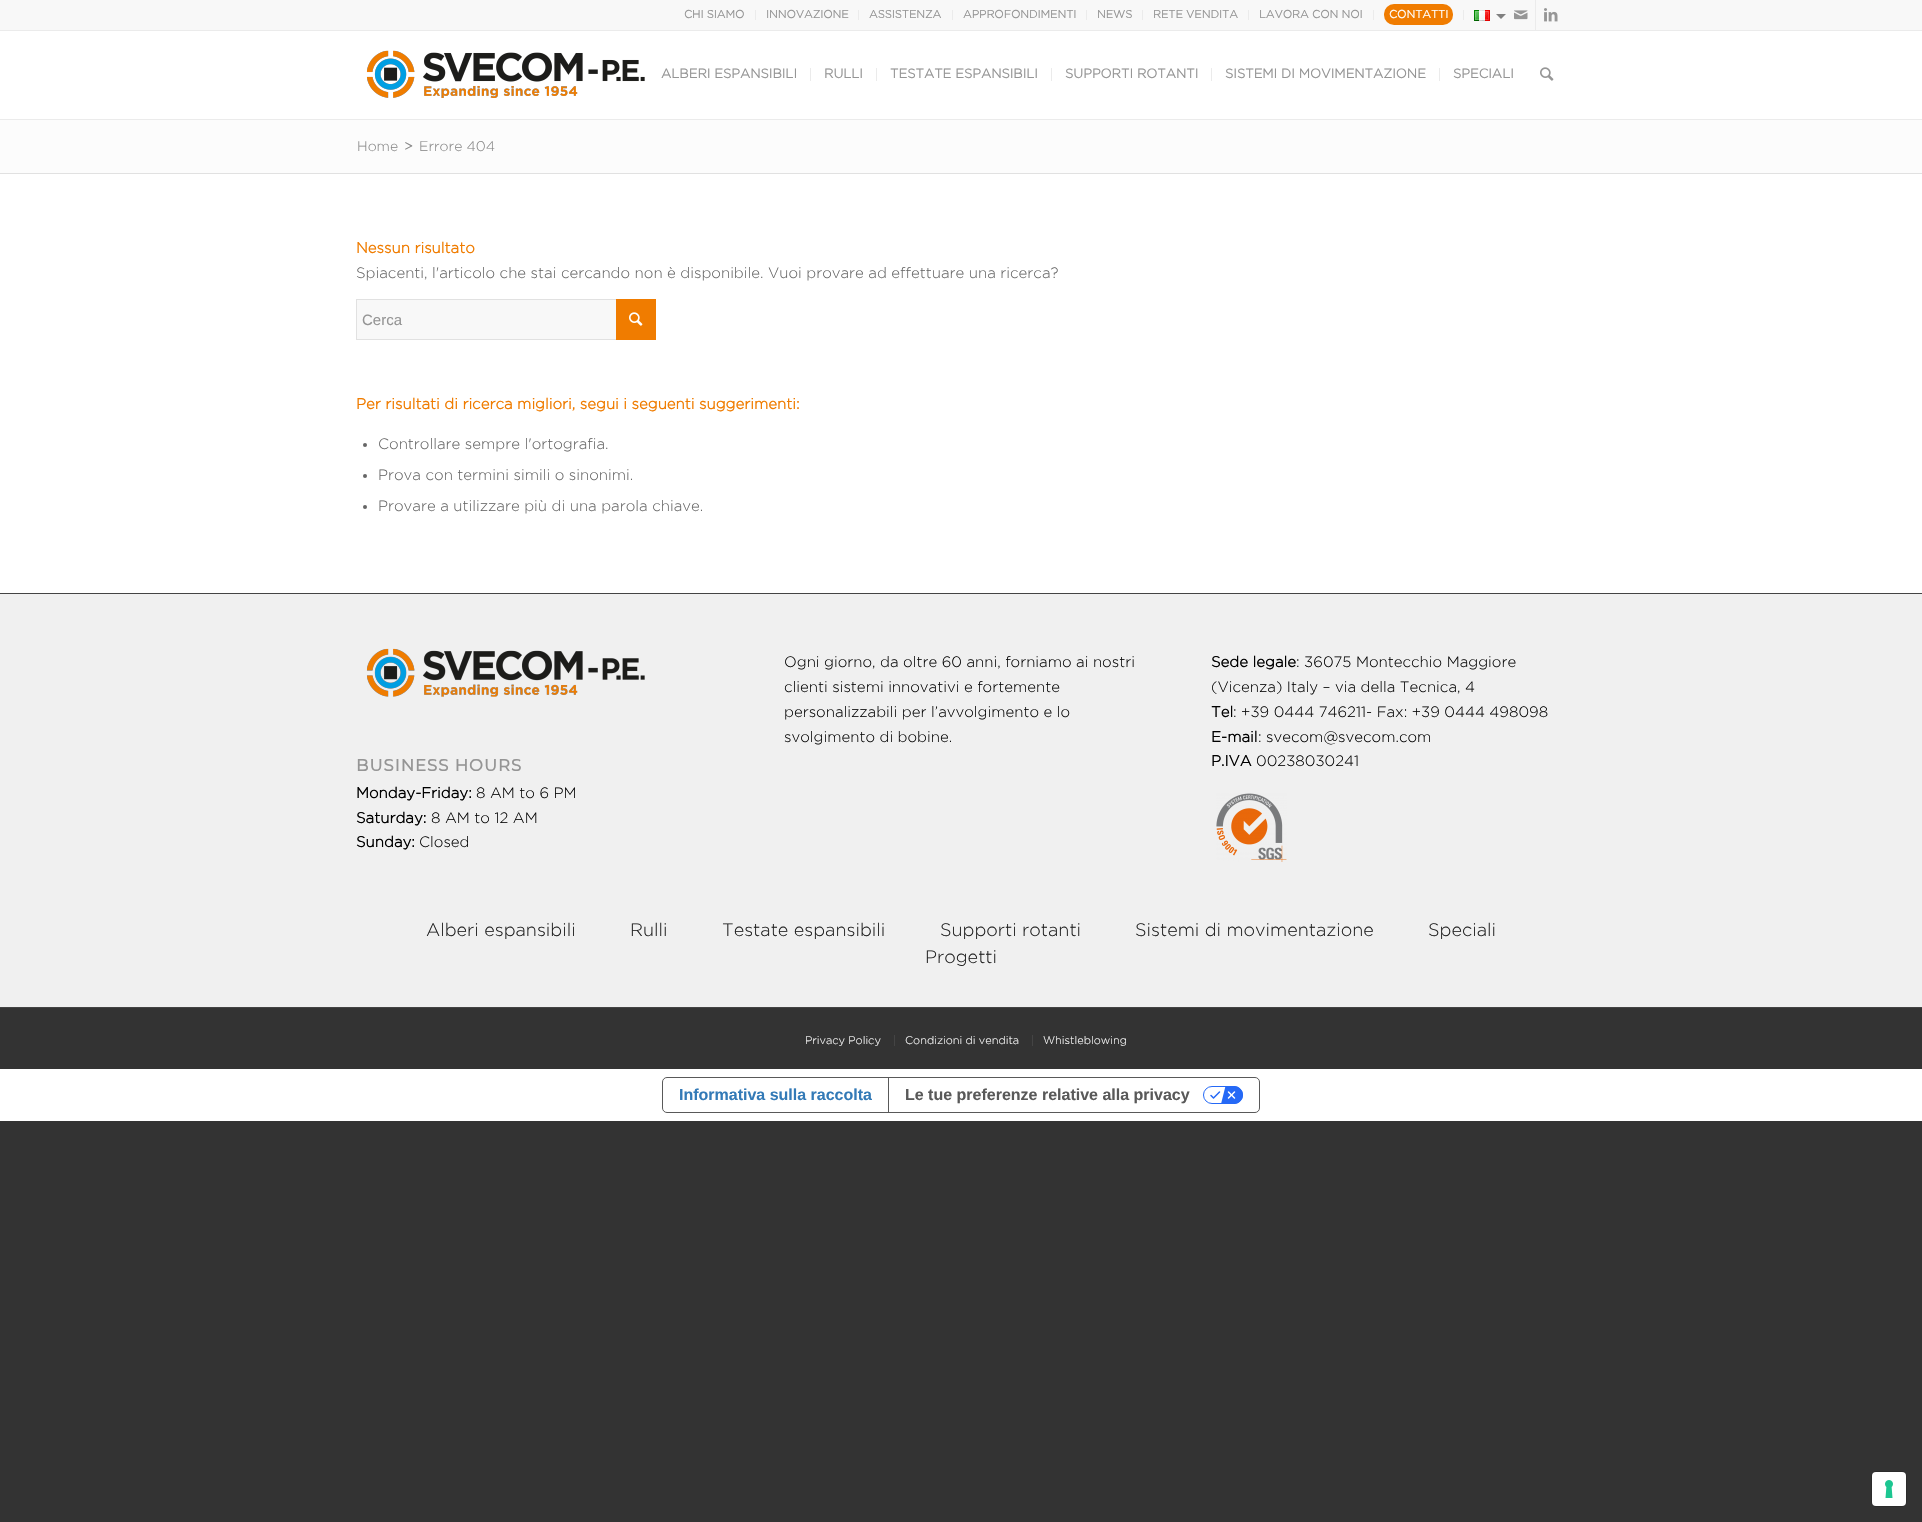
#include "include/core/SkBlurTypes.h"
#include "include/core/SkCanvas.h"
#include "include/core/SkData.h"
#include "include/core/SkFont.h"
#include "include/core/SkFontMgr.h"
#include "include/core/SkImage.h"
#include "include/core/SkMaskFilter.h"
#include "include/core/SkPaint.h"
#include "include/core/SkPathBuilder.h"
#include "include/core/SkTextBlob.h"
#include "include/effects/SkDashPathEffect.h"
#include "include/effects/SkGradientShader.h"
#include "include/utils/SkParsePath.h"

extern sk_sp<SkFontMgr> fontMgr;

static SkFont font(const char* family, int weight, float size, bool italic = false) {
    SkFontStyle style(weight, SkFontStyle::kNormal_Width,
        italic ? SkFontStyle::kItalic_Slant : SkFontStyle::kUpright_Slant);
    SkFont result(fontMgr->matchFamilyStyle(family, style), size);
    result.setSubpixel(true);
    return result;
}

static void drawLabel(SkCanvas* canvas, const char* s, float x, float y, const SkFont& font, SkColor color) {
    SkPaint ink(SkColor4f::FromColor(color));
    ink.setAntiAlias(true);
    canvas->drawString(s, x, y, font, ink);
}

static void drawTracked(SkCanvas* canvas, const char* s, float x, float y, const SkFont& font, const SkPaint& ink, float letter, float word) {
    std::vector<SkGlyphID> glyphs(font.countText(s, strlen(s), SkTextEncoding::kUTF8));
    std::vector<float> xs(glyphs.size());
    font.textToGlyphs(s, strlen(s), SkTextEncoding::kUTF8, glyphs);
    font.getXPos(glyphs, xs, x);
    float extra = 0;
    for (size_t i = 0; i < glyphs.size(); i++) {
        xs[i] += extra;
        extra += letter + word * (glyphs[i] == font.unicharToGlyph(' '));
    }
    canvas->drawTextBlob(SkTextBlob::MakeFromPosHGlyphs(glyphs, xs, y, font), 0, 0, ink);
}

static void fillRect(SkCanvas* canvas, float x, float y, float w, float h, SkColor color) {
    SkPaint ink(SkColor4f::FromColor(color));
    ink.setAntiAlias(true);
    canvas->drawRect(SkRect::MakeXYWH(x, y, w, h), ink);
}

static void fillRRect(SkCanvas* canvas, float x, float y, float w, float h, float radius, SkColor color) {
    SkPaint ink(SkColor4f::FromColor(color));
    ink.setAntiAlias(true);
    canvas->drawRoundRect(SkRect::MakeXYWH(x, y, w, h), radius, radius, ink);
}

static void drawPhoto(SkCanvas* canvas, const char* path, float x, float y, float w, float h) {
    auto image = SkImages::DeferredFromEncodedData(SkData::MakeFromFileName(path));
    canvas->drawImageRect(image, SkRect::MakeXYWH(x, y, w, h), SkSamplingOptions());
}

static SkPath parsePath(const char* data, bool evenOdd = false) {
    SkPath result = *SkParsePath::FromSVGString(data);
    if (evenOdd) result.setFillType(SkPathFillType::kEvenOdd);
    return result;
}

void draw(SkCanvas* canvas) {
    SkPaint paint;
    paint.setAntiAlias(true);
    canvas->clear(0xFF333333);
    fillRect(canvas, 0, 1069, 1922, 52, 0xFFFFFFFF);
    fillRect(canvas, 0, 0, 1922, 30, 0xFFF8F8F8);
    fillRect(canvas, 0, 30, 1922, 1, 0xFFEBEBEB);
    fillRect(canvas, 755, 10, 1, 10, 0xFFEBEBEB);
    SkFont font1 = font("Gotham", 700, 11);
    drawLabel(canvas, "CHI SIAMO", 684, 18, font1, 0xFF959595);
    fillRect(canvas, 858, 10, 1, 10, 0xFFEBEBEB);
    drawLabel(canvas, "INNOVAZIONE", 766, 18, font1, 0xFF959595);
    fillRect(canvas, 952, 10, 1, 10, 0xFFEBEBEB);
    drawLabel(canvas, "ASSISTENZA", 869, 18, font1, 0xFF959595);
    fillRect(canvas, 1086, 10, 1, 10, 0xFFEBEBEB);
    drawLabel(canvas, "APPROFONDIMENTI", 963, 18, font1, 0xFF959595);
    fillRect(canvas, 1142, 10, 1, 10, 0xFFEBEBEB);
    drawLabel(canvas, "NEWS", 1097, 18, font1, 0xFF959595);
    fillRect(canvas, 1248, 10, 1, 10, 0xFFEBEBEB);
    drawLabel(canvas, "RETE VENDITA", 1153, 18, font1, 0xFF959595);
    fillRect(canvas, 1373, 10, 1, 10, 0xFFEBEBEB);
    drawLabel(canvas, "LAVORA CON NOI", 1259, 18, font1, 0xFF959595);
    fillRect(canvas, 1463, 10, 1, 10, 0xFFEBEBEB);
    fillRRect(canvas, 1384, 4, 69, 21, 10, 0xFFF07C00);
    drawLabel(canvas, "CONTATTI", 1389, 18, font1, 0xFFFFFFFF);
    drawPhoto(canvas, "assets/img1.png", 1474, 10, 16, 11);
    paint.setColor(0xFF808080);
    canvas->drawPath(parsePath("M1496 14H1506L1501 19Z"), paint);
    fillRect(canvas, 1535, 0, 1, 30, 0xFFEBEBEB);
    drawPhoto(canvas, "assets/img2.png", 1514, 10, 14, 10);
    drawPhoto(canvas, "assets/img3.png", 1544, 8, 14, 14);
    fillRect(canvas, 0, 119, 1922, 1, 0xFFEBEBEB);
    fillRect(canvas, 0, 31, 1922, 88, 0xFFFFFFFF);
    drawPhoto(canvas, "assets/img4.png", 366, 50, 279, 48);
    SkFont font2 = font("Gotham", 700, 13);
    drawLabel(canvas, "ALBERI ESPANSIBILI", 661, 78, font2, 0xFF959595);
    drawLabel(canvas, "RULLI", 824, 78, font2, 0xFF959595);
    fillRect(canvas, 810, 68, 1, 13, 0xFFEBEBEB);
    drawLabel(canvas, "TESTATE ESPANSIBILI", 890, 78, font2, 0xFF959595);
    fillRect(canvas, 876, 68, 1, 13, 0xFFEBEBEB);
    drawLabel(canvas, "SUPPORTI ROTANTI", 1065, 78, font2, 0xFF959595);
    fillRect(canvas, 1051, 68, 1, 13, 0xFFEBEBEB);
    drawLabel(canvas, "SISTEMI DI MOVIMENTAZIONE", 1225, 78, font2, 0xFF959595);
    fillRect(canvas, 1211, 68, 1, 13, 0xFFEBEBEB);
    drawLabel(canvas, "SPECIALI", 1453, 78, font2, 0xFF959595);
    fillRect(canvas, 1439, 68, 1, 13, 0xFFEBEBEB);
    drawPhoto(canvas, "assets/img5.png", 1540, 67, 14, 14);
    fillRect(canvas, 0, 174, 1922, 419, 0xFFFFFFFF);
    fillRect(canvas, 0, 120, 1922, 53, 0xFFFCFCFC);
    SkFont font3 = font("Gotham", 300, 14);
    drawLabel(canvas, "Home", 357, 151, font3, 0xFF888888);
    SkFont font4 = font("Gotham", 700, 14);
    drawLabel(canvas, ">", 404, 151, font4, 0xFF888888);
    drawLabel(canvas, "Errore 404", 419, 151, font3, 0xFF888888);
    fillRect(canvas, 0, 173, 1922, 1, 0xFFE1E1E1);
    SkFont font5 = font("Gotham", 700, 15);
    drawLabel(canvas, "Nessun risultato", 356, 253, font5, 0xFFF07C00);
    SkFont font6 = font("Gotham", 300, 15);
    drawLabel(canvas, "Spiacenti, l'articolo che stai cercando non è disponibile. Vuoi provare ad effettuare una ricerca?", 356, 278, font6, 0xFF666666);
    fillRect(canvas, 357, 300, 259, 39, 0xFFF8F8F8);
    paint.setStroke(true);
    paint.setStrokeWidth(1);
    paint.setColor(0xFFE1E1E1);
    canvas->drawRect(SkRect::MakeXYWH(356.5f, 299.5f, 299, 40), paint);
    SkFont font7 = font("Liberation Sans", 400, 15);
    drawLabel(canvas, "Cerca", 362, 325, font7, 0xFF959595);
    fillRect(canvas, 616, 299, 40, 41, 0xFFF07C00);
    drawPhoto(canvas, "assets/img6.png", 629, 312, 14, 14);
    drawLabel(canvas, "Per risultati di ricerca migliori, segui i seguenti suggerimenti:", 356, 409, font5, 0xFFF07C00);
    paint.setStroke(false);
    paint.setColor(0xFF666666);
    canvas->drawCircle(365, 445, 2, paint);
    drawLabel(canvas, "Controllare sempre l'ortografia.", 378, 449, font6, 0xFF666666);
    canvas->drawCircle(365, 476, 2, paint);
    drawLabel(canvas, "Prova con termini simili o sinonimi.", 378, 480, font6, 0xFF666666);
    canvas->drawCircle(365, 507, 2, paint);
    drawLabel(canvas, "Provare a utilizzare più di una parola chiave.", 378, 511, font6, 0xFF666666);
    fillRect(canvas, 0, 594, 1922, 413, 0xFFF0F0F0);
    fillRect(canvas, 0, 593, 1922, 1, 0xFF444444);
    drawLabel(canvas, "Ogni giorno, da oltre 60 anni, forniamo ai nostri", 784, 667, font6, 0xFF080808);
    drawLabel(canvas, "clienti sistemi innovativi e fortemente", 784, 692, font6, 0xFF080808);
    drawLabel(canvas, "personalizzabili per l’avvolgimento e lo", 784, 717, font6, 0xFF080808);
    drawLabel(canvas, "svolgimento di bobine.", 784, 742, font6, 0xFF080808);
    drawLabel(canvas, "Sede legale", 1211, 667, font5, 0xFF000000);
    drawLabel(canvas, ": 36075 Montecchio Maggiore", 1296, 667, font6, 0xFF080808);
    drawLabel(canvas, "(Vicenza) Italy – via della Tecnica, 4", 1211, 692, font6, 0xFF080808);
    drawLabel(canvas, "Tel", 1211, 717, font5, 0xFF000000);
    drawLabel(canvas, ": +39 0444 746211- Fax: +39 0444 498098", 1233, 717, font6, 0xFF080808);
    drawLabel(canvas, "E-mail", 1211, 742, font5, 0xFF000000);
    drawLabel(canvas, ":", 1258, 742, font6, 0xFF080808);
    drawLabel(canvas, "svecom@svecom.com", 1266, 742, font6, 0xFF000000);
    drawLabel(canvas, "P.IVA", 1211, 766, font5, 0xFF000000);
    drawLabel(canvas, "00238030241", 1256, 766, font6, 0xFF080808);
    drawPhoto(canvas, "assets/img7.png", 1216, 793, 71, 69);
    drawPhoto(canvas, "assets/img8.png", 366, 648, 279, 49);
    SkFont font8 = font("Montserrat", 700, 16.5f);
    paint.setColor(0xFF959595);
    drawTracked(canvas, "BUSINESS HOURS", 356, 771, font8, paint, 1, 0);
    drawLabel(canvas, "Monday-Friday:", 356, 798, font5, 0xFF000000);
    drawLabel(canvas, "8 AM to 6 PM", 476, 798, font6, 0xFF080808);
    drawLabel(canvas, "Saturday:", 356, 823, font5, 0xFF000000);
    drawLabel(canvas, "8 AM to 12 AM", 431, 823, font6, 0xFF080808);
    drawLabel(canvas, "Sunday:", 356, 847, font5, 0xFF000000);
    drawLabel(canvas, "Closed", 419, 847, font6, 0xFF080808);
    SkFont font9 = font("Gotham", 300, 18);
    drawLabel(canvas, "Alberi espansibili", 426, 936, font9, 0xFF222222);
    drawLabel(canvas, "Rulli", 630, 936, font9, 0xFF222222);
    drawLabel(canvas, "Testate espansibili", 722, 936, font9, 0xFF222222);
    drawLabel(canvas, "Supporti rotanti", 940, 936, font9, 0xFF222222);
    drawLabel(canvas, "Sistemi di movimentazione", 1135, 936, font9, 0xFF222222);
    drawLabel(canvas, "Speciali", 1428, 936, font9, 0xFF222222);
    drawLabel(canvas, "Progetti", 925, 963, font9, 0xFF222222);
    fillRect(canvas, 0, 1007, 1922, 1, 0xFF444444);
    SkFont font10 = font("Gotham", 300, 11);
    drawLabel(canvas, "Privacy Policy", 805, 1044, font10, 0xFFFFFFFF);
    drawLabel(canvas, "Condizioni di vendita", 905, 1044, font10, 0xFFFFFFFF);
    fillRect(canvas, 894, 1035, 1, 11, 0xFF444444);
    drawLabel(canvas, "Whistleblowing", 1043, 1044, font10, 0xFFFFFFFF);
    fillRect(canvas, 1032, 1035, 1, 11, 0xFF444444);
    paint.setStroke(true);
    paint.setColor(0xFF595959);
    canvas->drawRoundRect(SkRect::MakeXYWH(662.5f, 1077.5f, 597, 35), 4.5f, 4.5f, paint);
    SkFont font11 = font("Liberation Sans", 700, 16);
    drawLabel(canvas, "Informativa sulla raccolta", 679, 1100, font11, 0xFF337AB7);
    fillRect(canvas, 888, 1078, 1, 34, 0xFF595959);
    drawLabel(canvas, "Le tue preferenze relative alla privacy", 905, 1100, font11, 0xFF595959);
    drawPhoto(canvas, "assets/img9.png", 1203, 1086, 40, 18);
    paint.setColor(0xFF2B2B2B);
    canvas->drawRoundRect(SkRect::MakeXYWH(1871.5f, 1471.5f, 35, 35), 4.5f, 4.5f, paint);
    fillRRect(canvas, 1872, 1472, 34, 34, 4, 0xFFFFFFFF);
    drawPhoto(canvas, "assets/img10.png", 1885, 1480, 8, 18);
}
